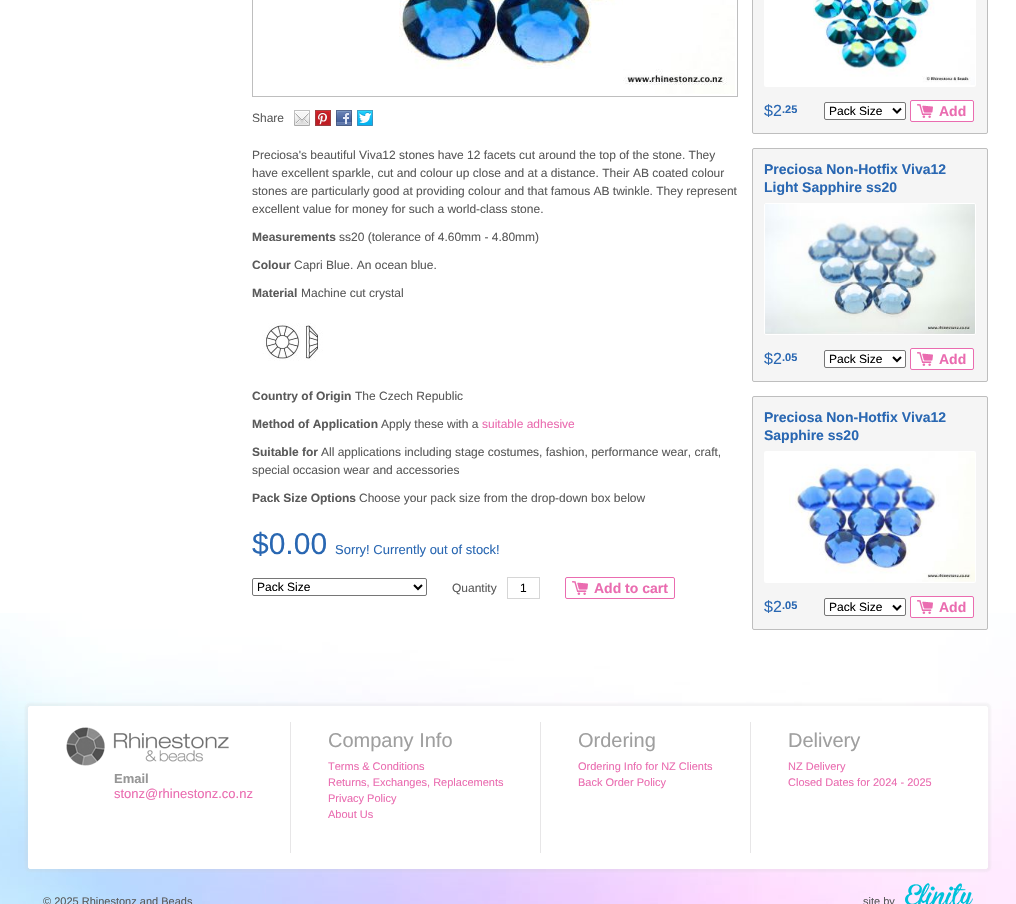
#include "include/core/SkBlurTypes.h"
#include "include/core/SkCanvas.h"
#include "include/core/SkData.h"
#include "include/core/SkFont.h"
#include "include/core/SkFontMgr.h"
#include "include/core/SkImage.h"
#include "include/core/SkMaskFilter.h"
#include "include/core/SkPaint.h"
#include "include/core/SkPathBuilder.h"
#include "include/core/SkTextBlob.h"
#include "include/effects/SkDashPathEffect.h"
#include "include/effects/SkGradientShader.h"
#include "include/utils/SkParsePath.h"

extern sk_sp<SkFontMgr> fontMgr;

static SkFont font(const char* family, int weight, float size, bool italic = false) {
    SkFontStyle style(weight, SkFontStyle::kNormal_Width,
        italic ? SkFontStyle::kItalic_Slant : SkFontStyle::kUpright_Slant);
    SkFont result(fontMgr->matchFamilyStyle(family, style), size);
    result.setSubpixel(true);
    return result;
}

static void drawLabel(SkCanvas* canvas, const char* s, float x, float y, const SkFont& font, SkColor color) {
    SkPaint ink(SkColor4f::FromColor(color));
    ink.setAntiAlias(true);
    canvas->drawString(s, x, y, font, ink);
}

static void fillRect(SkCanvas* canvas, float x, float y, float w, float h, SkColor color) {
    SkPaint ink(SkColor4f::FromColor(color));
    ink.setAntiAlias(true);
    canvas->drawRect(SkRect::MakeXYWH(x, y, w, h), ink);
}

static void fillRRect(SkCanvas* canvas, float x, float y, float w, float h, float radius, SkColor color) {
    SkPaint ink(SkColor4f::FromColor(color));
    ink.setAntiAlias(true);
    canvas->drawRoundRect(SkRect::MakeXYWH(x, y, w, h), radius, radius, ink);
}

static void drawPhoto(SkCanvas* canvas, const char* path, float x, float y, float w, float h) {
    auto image = SkImages::DeferredFromEncodedData(SkData::MakeFromFileName(path));
    canvas->drawImageRect(image, SkRect::MakeXYWH(x, y, w, h), SkSamplingOptions());
}

static SkPath parsePath(const char* data, bool evenOdd = false) {
    SkPath result = *SkParsePath::FromSVGString(data);
    if (evenOdd) result.setFillType(SkPathFillType::kEvenOdd);
    return result;
}

void draw(SkCanvas* canvas) {
    SkPaint paint;
    paint.setAntiAlias(true);
    canvas->clear(0xFFFFFFFF);
    drawPhoto(canvas, "assets/img1.png", 0, 613, 1016, 291);
    paint.setStroke(true);
    paint.setStrokeWidth(1);
    paint.setColor(0xFFBEBEBE);
    canvas->drawRect(SkRect::MakeXYWH(252.5f, -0.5f, 485, 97), paint);
    drawPhoto(canvas, "assets/img2.png", 399, 0, 336, 94);
    SkFont font1 = font("Liberation Sans", 400, 12);
    drawLabel(canvas, "Share", 252, 122, font1, 0xFF5A5A5A);
    drawPhoto(canvas, "assets/img3.png", 294, 110, 16, 16);
    drawPhoto(canvas, "assets/img4.png", 315, 110, 16, 16);
    drawPhoto(canvas, "assets/img5.png", 336, 110, 16, 16);
    drawPhoto(canvas, "assets/img6.png", 357, 110, 16, 16);
    drawLabel(canvas, "Preciosa's beautiful Viva12 stones have 12 facets cut around the top of the stone. They", 252, 159, font1, 0xFF5A5A5A);
    drawLabel(canvas, "have excellent sparkle, cut and colour up close and at a distance. Their AB coated colour", 252, 177, font1, 0xFF5A5A5A);
    drawLabel(canvas, "stones are particularly good at providing colour and that famous AB twinkle. They represent", 252, 195, font1, 0xFF5A5A5A);
    drawLabel(canvas, "excellent value for money for such a world-class stone.", 252, 213, font1, 0xFF5A5A5A);
    SkFont font2 = font("Liberation Sans", 700, 12);
    drawLabel(canvas, "Measurements", 252, 241, font2, 0xFF5A5A5A);
    drawLabel(canvas, "ss20 (tolerance of 4.60mm - 4.80mm)", 339, 241, font1, 0xFF5A5A5A);
    drawLabel(canvas, "Colour", 252, 269, font2, 0xFF5A5A5A);
    drawLabel(canvas, "Capri Blue. An ocean blue.", 294, 269, font1, 0xFF5A5A5A);
    drawLabel(canvas, "Material", 252, 297, font2, 0xFF5A5A5A);
    drawLabel(canvas, "Machine cut crystal", 301, 297, font1, 0xFF5A5A5A);
    drawPhoto(canvas, "assets/img7.png", 262, 323, 61, 38);
    drawLabel(canvas, "Country of Origin", 252, 400, font2, 0xFF5A5A5A);
    drawLabel(canvas, "The Czech Republic", 355, 400, font1, 0xFF5A5A5A);
    drawLabel(canvas, "Method of Application", 252, 428, font2, 0xFF5A5A5A);
    drawLabel(canvas, "Apply these with a", 381, 428, font1, 0xFF5A5A5A);
    drawLabel(canvas, "suitable adhesive", 482, 428, font1, 0xFFEA6CB0);
    drawLabel(canvas, "Suitable for", 252, 456, font2, 0xFF5A5A5A);
    drawLabel(canvas, "All applications including stage costumes, fashion, performance wear, craft,", 321, 456, font1, 0xFF5A5A5A);
    drawLabel(canvas, "special occasion wear and accessories", 252, 474, font1, 0xFF5A5A5A);
    drawLabel(canvas, "Pack Size Options", 252, 502, font2, 0xFF5A5A5A);
    drawLabel(canvas, "Choose your pack size from the drop-down box below", 359, 502, font1, 0xFF5A5A5A);
    SkFont font3 = font("Liberation Sans", 400, 30);
    drawLabel(canvas, "$0.00", 252, 554, font3, 0xFF2967B2);
    SkFont font4 = font("Liberation Sans", 400, 13);
    drawLabel(canvas, "Sorry! Currently out of stock!", 335, 554, font4, 0xFF2967B2);
    paint.setColor(0xFF767676);
    canvas->drawRoundRect(SkRect::MakeXYWH(252.5f, 578.5f, 174, 17), 1.5f, 1.5f, paint);
    paint.setStrokeWidth(2);
    paint.setColor(0xFF000000);
    canvas->drawPath(parsePath("M414 585L418 589L422 585"), paint);
    drawLabel(canvas, "Pack Size", 257, 591, font1, 0xFF000000);
    drawLabel(canvas, "Quantity", 452, 592, font1, 0xFF5A5A5A);
    paint.setStrokeWidth(1);
    paint.setColor(0xFFD6D6D6);
    canvas->drawRect(SkRect::MakeXYWH(507.5f, 577.5f, 32, 21), paint);
    drawLabel(canvas, "1", 520, 592, font1, 0xFF000000);
    paint.setColor(0xFFEA6CB0);
    canvas->drawRoundRect(SkRect::MakeXYWH(565.5f, 577.5f, 109, 21), 1.5f, 1.5f, paint);
    drawPhoto(canvas, "assets/img8.png", 572, 581, 16, 14);
    SkFont font5 = font("Liberation Sans", 700, 14);
    drawLabel(canvas, "Add to cart", 594, 593, font5, 0xFFEA6CB0);
    paint.setStroke(false);
    paint.setColor(0xFFF5F5F5);
    canvas->drawRoundRect(SkRect::MakeXYWH(752.5f, -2.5f, 235, 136), 1.5f, 1.5f, paint);
    paint.setStroke(true);
    paint.setColor(0xFFBEBEBE);
    canvas->drawRoundRect(SkRect::MakeXYWH(752.5f, -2.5f, 235, 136), 1.5f, 1.5f, paint);
    fillRRect(canvas, 764, -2, 212, 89, 2, 0xFFFFFFFF);
    drawPhoto(canvas, "assets/img9.png", 813, 0, 162, 85);
    SkFont font6 = font("Liberation Sans", 400, 16);
    drawLabel(canvas, "$2", 764, 116, font6, 0xFF2967B2);
    SkFont font7 = font("Liberation Sans", 700, 11);
    drawLabel(canvas, ".25", 782, 113, font7, 0xFF2967B2);
    paint.setStroke(false);
    paint.setColor(0xFFFFFFFF);
    canvas->drawRoundRect(SkRect::MakeXYWH(824.5f, 102.5f, 81, 17), 1.5f, 1.5f, paint);
    paint.setStroke(true);
    paint.setColor(0xFF767676);
    canvas->drawRoundRect(SkRect::MakeXYWH(824.5f, 102.5f, 81, 17), 1.5f, 1.5f, paint);
    paint.setStrokeWidth(2);
    paint.setColor(0xFF000000);
    canvas->drawPath(parsePath("M893 108.5L897 112.5L901 108.5"), paint);
    drawLabel(canvas, "Pack Size", 829, 115, font1, 0xFF000000);
    paint.setStroke(false);
    paint.setColor(0xFFFFFFFF);
    canvas->drawRoundRect(SkRect::MakeXYWH(910.5f, 100.5f, 63, 21), 1.5f, 1.5f, paint);
    paint.setStroke(true);
    paint.setStrokeWidth(1);
    paint.setColor(0xFFEA6CB0);
    canvas->drawRoundRect(SkRect::MakeXYWH(910.5f, 100.5f, 63, 21), 1.5f, 1.5f, paint);
    drawPhoto(canvas, "assets/img8.png", 917, 104, 16, 14);
    drawLabel(canvas, "Add", 939, 116, font5, 0xFFEA6CB0);
    paint.setStroke(false);
    paint.setColor(0xFFF5F5F5);
    canvas->drawRoundRect(SkRect::MakeXYWH(752.5f, 148.5f, 235, 233), 1.5f, 1.5f, paint);
    paint.setStroke(true);
    paint.setColor(0xFFBEBEBE);
    canvas->drawRoundRect(SkRect::MakeXYWH(752.5f, 148.5f, 235, 233), 1.5f, 1.5f, paint);
    drawLabel(canvas, "Preciosa Non-Hotfix Viva12", 764, 174, font5, 0xFF2967B2);
    drawLabel(canvas, "Light Sapphire ss20", 764, 192, font5, 0xFF2967B2);
    paint.setColor(0xFFFFFFFF);
    canvas->drawRoundRect(SkRect::MakeXYWH(764.5f, 203.5f, 211, 131), 1.5f, 1.5f, paint);
    drawPhoto(canvas, "assets/img10.png", 765, 204, 210, 130);
    drawLabel(canvas, "$2", 764, 364, font6, 0xFF2967B2);
    drawLabel(canvas, ".05", 782, 361, font7, 0xFF2967B2);
    paint.setStroke(false);
    canvas->drawRoundRect(SkRect::MakeXYWH(824.5f, 350.5f, 81, 17), 1.5f, 1.5f, paint);
    paint.setStroke(true);
    paint.setColor(0xFF767676);
    canvas->drawRoundRect(SkRect::MakeXYWH(824.5f, 350.5f, 81, 17), 1.5f, 1.5f, paint);
    paint.setStrokeWidth(2);
    paint.setColor(0xFF000000);
    canvas->drawPath(parsePath("M893 357L897 361L901 357"), paint);
    drawLabel(canvas, "Pack Size", 829, 363, font1, 0xFF000000);
    paint.setStroke(false);
    paint.setColor(0xFFFFFFFF);
    canvas->drawRoundRect(SkRect::MakeXYWH(910.5f, 348.5f, 63, 21), 1.5f, 1.5f, paint);
    paint.setStroke(true);
    paint.setStrokeWidth(1);
    paint.setColor(0xFFEA6CB0);
    canvas->drawRoundRect(SkRect::MakeXYWH(910.5f, 348.5f, 63, 21), 1.5f, 1.5f, paint);
    drawPhoto(canvas, "assets/img8.png", 917, 352, 16, 14);
    drawLabel(canvas, "Add", 939, 364, font5, 0xFFEA6CB0);
    paint.setStroke(false);
    paint.setColor(0xFFF5F5F5);
    canvas->drawRoundRect(SkRect::MakeXYWH(752.5f, 396.5f, 235, 233), 1.5f, 1.5f, paint);
    paint.setStroke(true);
    paint.setColor(0xFFBEBEBE);
    canvas->drawRoundRect(SkRect::MakeXYWH(752.5f, 396.5f, 235, 233), 1.5f, 1.5f, paint);
    drawLabel(canvas, "Preciosa Non-Hotfix Viva12", 764, 422, font5, 0xFF2967B2);
    drawLabel(canvas, "Sapphire ss20", 764, 440, font5, 0xFF2967B2);
    fillRRect(canvas, 764, 451, 212, 132, 2, 0xFFFFFFFF);
    drawPhoto(canvas, "assets/img11.png", 789, 452, 186, 130);
    drawLabel(canvas, "$2", 764, 612, font6, 0xFF2967B2);
    drawLabel(canvas, ".05", 782, 609, font7, 0xFF2967B2);
    paint.setStroke(false);
    paint.setColor(0xFFFFFFFF);
    canvas->drawRoundRect(SkRect::MakeXYWH(824.5f, 598.5f, 81, 17), 1.5f, 1.5f, paint);
    paint.setStroke(true);
    paint.setColor(0xFF767676);
    canvas->drawRoundRect(SkRect::MakeXYWH(824.5f, 598.5f, 81, 17), 1.5f, 1.5f, paint);
    paint.setStrokeWidth(2);
    paint.setColor(0xFF000000);
    canvas->drawPath(parsePath("M893 605.5L897 609.5L901 605.5"), paint);
    drawLabel(canvas, "Pack Size", 829, 611, font1, 0xFF000000);
    paint.setStroke(false);
    paint.setColor(0xFFFFFFFF);
    canvas->drawRoundRect(SkRect::MakeXYWH(910.5f, 596.5f, 63, 21), 1.5f, 1.5f, paint);
    paint.setStroke(true);
    paint.setStrokeWidth(1);
    paint.setColor(0xFFEA6CB0);
    canvas->drawRoundRect(SkRect::MakeXYWH(910.5f, 596.5f, 63, 21), 1.5f, 1.5f, paint);
    drawPhoto(canvas, "assets/img8.png", 917, 600, 16, 14);
    drawLabel(canvas, "Add", 939, 612, font5, 0xFFEA6CB0);
    paint.setStroke(false);
    paint.setColor(0x33CCCCCC);
    paint.setMaskFilter(SkMaskFilter::MakeBlur(kNormal_SkBlurStyle, 1));
    canvas->drawRoundRect(SkRect::MakeXYWH(25, 703, 966, 169), 5, 5, paint);
    paint.setMaskFilter(nullptr);
    paint.setColor(0xFFFFFFFF);
    canvas->drawRoundRect(SkRect::MakeXYWH(28.5f, 706.5f, 959, 162), 1.5f, 1.5f, paint);
    paint.setStroke(true);
    canvas->drawRoundRect(SkRect::MakeXYWH(28.5f, 706.5f, 959, 162), 1.5f, 1.5f, paint);
    drawPhoto(canvas, "assets/img12.png", 66, 727, 163, 39);
    SkFont font8 = font("Liberation Sans", 700, 13);
    drawLabel(canvas, "Email", 114, 783, font8, 0xFF969696);
    drawLabel(canvas, "stonz@rhinestonz.co.nz", 114, 798, font4, 0xFFEA6CB0);
    fillRect(canvas, 290, 722, 1, 131, 0xFFE7E6E7);
    SkFont font9 = font("Liberation Sans", 400, 20);
    drawLabel(canvas, "Company Info", 328, 747, font9, 0xFF9F9F9F);
    SkFont font10 = font("Liberation Sans", 400, 11);
    drawLabel(canvas, "Terms & Conditions", 328, 770, font10, 0xFFEA6CB0);
    drawLabel(canvas, "Returns, Exchanges, Replacements", 328, 786, font10, 0xFFEA6CB0);
    drawLabel(canvas, "Privacy Policy", 328, 802, font10, 0xFFEA6CB0);
    drawLabel(canvas, "About Us", 328, 818, font10, 0xFFEA6CB0);
    fillRect(canvas, 540, 722, 1, 131, 0xFFE7E6E7);
    drawLabel(canvas, "Ordering", 578, 747, font9, 0xFF9F9F9F);
    drawLabel(canvas, "Ordering Info for NZ Clients", 578, 770, font10, 0xFFEA6CB0);
    drawLabel(canvas, "Back Order Policy", 578, 786, font10, 0xFFEA6CB0);
    fillRect(canvas, 750, 722, 1, 131, 0xFFE7E6E7);
    drawLabel(canvas, "Delivery", 788, 747, font9, 0xFF9F9F9F);
    drawLabel(canvas, "NZ Delivery", 788, 770, font10, 0xFFEA6CB0);
    drawLabel(canvas, "Closed Dates for 2024 - 2025", 788, 786, font10, 0xFFEA6CB0);
    drawLabel(canvas, "© 2025 Rhinestonz and Beads", 43, 905, font10, 0xFF5A5A5A);
    drawLabel(canvas, "site by", 863, 905, font10, 0xFF5A5A5A);
    drawPhoto(canvas, "assets/img13.png", 905, 883, 68, 21);
}
